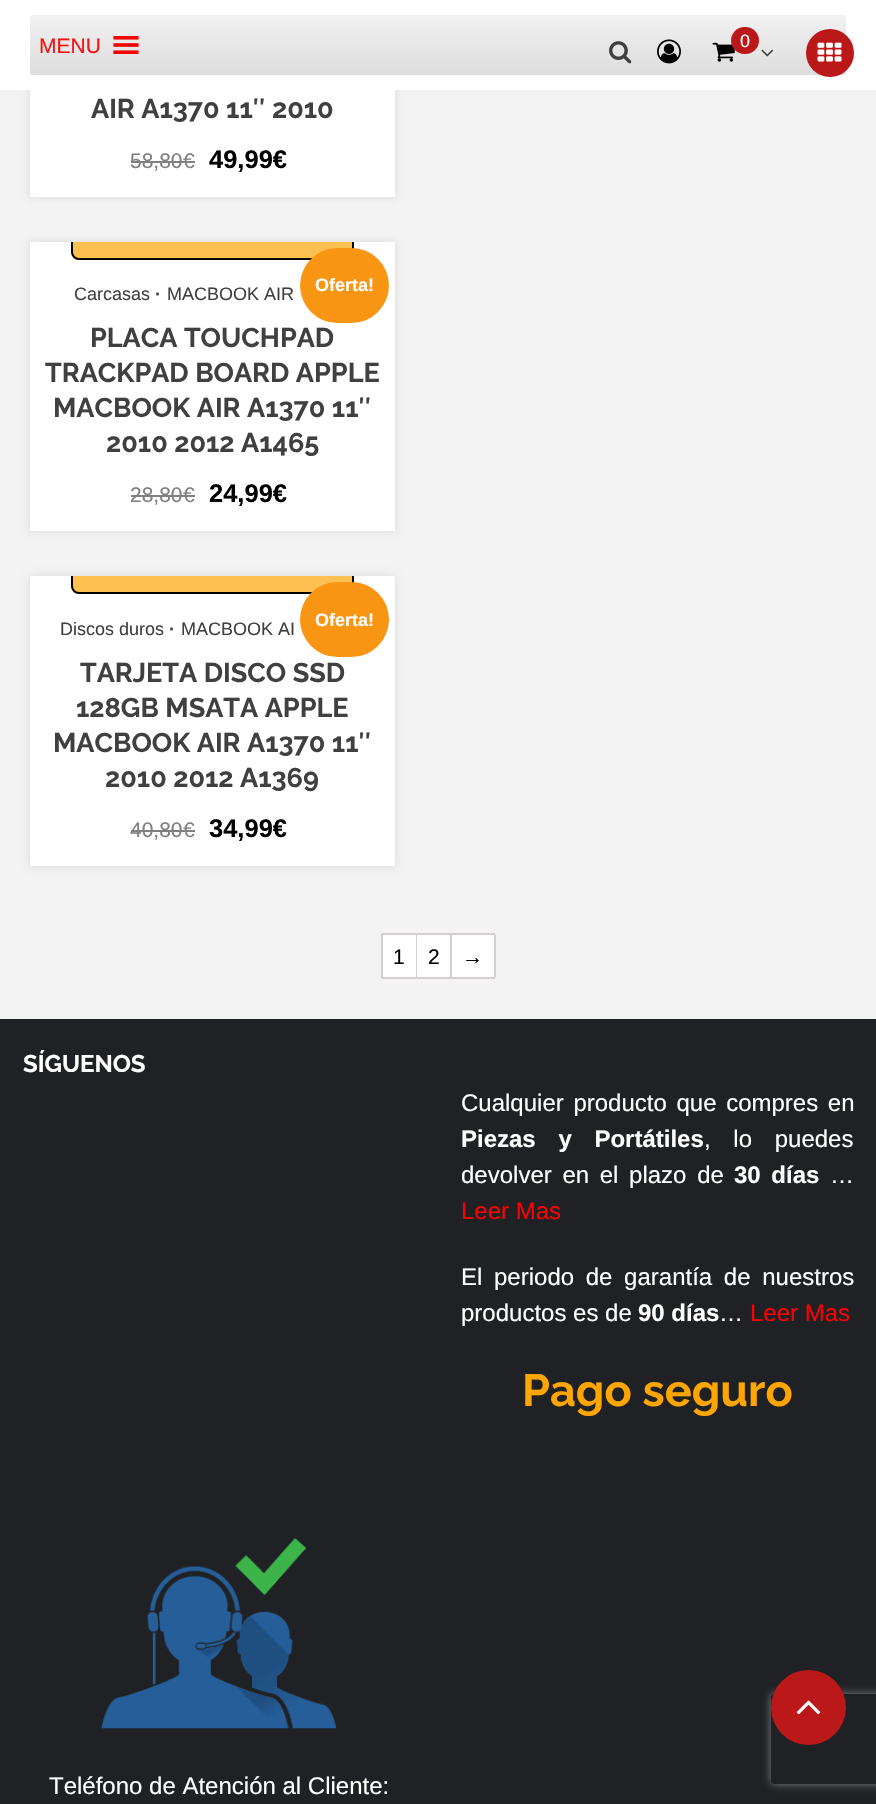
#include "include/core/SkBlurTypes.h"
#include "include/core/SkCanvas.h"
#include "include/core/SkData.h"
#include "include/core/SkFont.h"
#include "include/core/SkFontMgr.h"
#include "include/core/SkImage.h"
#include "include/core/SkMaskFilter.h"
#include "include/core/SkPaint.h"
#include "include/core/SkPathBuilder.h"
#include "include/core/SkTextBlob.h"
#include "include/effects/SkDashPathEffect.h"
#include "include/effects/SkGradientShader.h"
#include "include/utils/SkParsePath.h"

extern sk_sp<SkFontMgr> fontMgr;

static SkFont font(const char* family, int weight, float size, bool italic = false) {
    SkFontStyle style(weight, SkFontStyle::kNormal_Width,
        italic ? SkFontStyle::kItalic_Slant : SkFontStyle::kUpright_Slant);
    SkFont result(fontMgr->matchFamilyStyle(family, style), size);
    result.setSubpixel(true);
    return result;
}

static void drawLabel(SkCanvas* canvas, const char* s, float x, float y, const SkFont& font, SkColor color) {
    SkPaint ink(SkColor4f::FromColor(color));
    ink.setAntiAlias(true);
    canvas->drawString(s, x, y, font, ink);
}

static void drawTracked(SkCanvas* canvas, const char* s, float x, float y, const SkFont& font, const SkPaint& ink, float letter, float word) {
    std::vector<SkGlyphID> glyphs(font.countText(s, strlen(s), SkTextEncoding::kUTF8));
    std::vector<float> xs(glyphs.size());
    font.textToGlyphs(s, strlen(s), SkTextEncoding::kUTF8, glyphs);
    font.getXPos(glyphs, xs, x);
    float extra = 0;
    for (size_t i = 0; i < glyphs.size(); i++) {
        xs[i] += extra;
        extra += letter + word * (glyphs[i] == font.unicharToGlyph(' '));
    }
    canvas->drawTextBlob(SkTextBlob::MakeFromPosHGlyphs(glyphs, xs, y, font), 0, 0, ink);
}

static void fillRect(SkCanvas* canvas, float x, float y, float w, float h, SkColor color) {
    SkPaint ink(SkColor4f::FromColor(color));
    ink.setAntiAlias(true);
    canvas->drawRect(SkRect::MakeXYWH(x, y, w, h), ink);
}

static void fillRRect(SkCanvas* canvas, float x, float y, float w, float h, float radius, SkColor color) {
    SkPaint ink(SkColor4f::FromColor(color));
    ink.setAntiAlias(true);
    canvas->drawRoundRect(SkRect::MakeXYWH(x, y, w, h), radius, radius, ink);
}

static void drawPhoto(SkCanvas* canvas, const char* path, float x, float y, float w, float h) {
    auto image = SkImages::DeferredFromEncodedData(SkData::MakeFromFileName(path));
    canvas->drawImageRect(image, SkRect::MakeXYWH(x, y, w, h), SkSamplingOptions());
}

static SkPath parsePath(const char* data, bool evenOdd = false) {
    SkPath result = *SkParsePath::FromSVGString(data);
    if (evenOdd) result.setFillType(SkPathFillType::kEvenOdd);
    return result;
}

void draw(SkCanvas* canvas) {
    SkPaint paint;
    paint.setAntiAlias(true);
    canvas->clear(0xFFF3F3F3);
    paint.setColor(0x1A000000);
    paint.setMaskFilter(SkMaskFilter::MakeBlur(kNormal_SkBlurStyle, 4));
    canvas->drawRect(SkRect::MakeXYWH(30, -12, 365, 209), paint);
    paint.setMaskFilter(nullptr);
    fillRect(canvas, 0, 0, 876, 90, 0xFFFFFFFF);
    {
        const SkColor colors[] = {0xFFF1F1F1, 0xFFDDDDDD};
        const float stops[] = {0, 1};
        const SkPoint ends[] = {{438, 15}, {438, 75}};
        paint.setShader(SkGradientShader::MakeLinear(ends, colors, stops, 2, SkTileMode::kClamp));
        paint.setAlpha(255);
    }
    canvas->drawRoundRect(SkRect::MakeXYWH(30, 15, 816, 60), 3, 3, paint);
    SkFont font1 = font("Liberation Sans", 400, 21);
    drawLabel(canvas, "MENU", 39, 53, font1, 0xFFF91010);
    drawPhoto(canvas, "assets/img1.png", 113, 36, 26, 18);
    drawPhoto(canvas, "assets/img2.png", 609, 41, 23, 23);
    drawPhoto(canvas, "assets/img3.png", 657, 39, 24, 25);
    drawPhoto(canvas, "assets/img4.png", 712, 42, 23, 20);
    fillRRect(canvas, 731, 27, 28, 27, 13.5f, 0xFFBB1919);
    SkFont font2 = font("Liberation Sans", 400, 18);
    drawLabel(canvas, "0", 740, 47, font2, 0xFFFFFFFF);
    drawPhoto(canvas, "assets/img5.png", 761, 49, 12, 8);
    paint.setShader(nullptr);
    paint.setColor(0xFFBB1919);
    canvas->drawCircle(830, 53, 24, paint);
    drawPhoto(canvas, "assets/img6.png", 817, 42, 25, 20);
    fillRect(canvas, 30, 90, 365, 107, 0xFFFFFFFF);
    SkFont font3 = font("Raleway", 700, 27);
    drawLabel(canvas, "AIR A1370 11″ 2010", 91, 118, font3, 0xFF404040);
    drawLabel(canvas, "58,80", 130, 168, font1, 0xFF808080);
    fillRect(canvas, 131, 161, 52, 2, 0xFF808080);
    fillRect(canvas, 183, 161, 12, 2, 0xFF808080);
    drawLabel(canvas, "€", 183, 168, font1, 0xFF808080);
    SkFont font4 = font("Liberation Sans", 700, 25.5f);
    drawLabel(canvas, "49,99€", 209, 168, font4, 0xFF000000);
    paint.setColor(0x1A000000);
    paint.setMaskFilter(SkMaskFilter::MakeBlur(kNormal_SkBlurStyle, 4));
    canvas->drawRect(SkRect::MakeXYWH(30, 242, 365, 289), paint);
    paint.setMaskFilter(nullptr);
    fillRect(canvas, 30, 242, 365, 289, 0xFFFFFFFF);
    paint.setColor(0xFFFEC050);
    canvas->drawPath(parsePath("M71 242H354V252C354 256.5 350.5 260 346 260H79C74.5 260 71 256.5 71 252Z"), paint);
    canvas->save();
    canvas->clipRect(SkRect::MakeXYWH(30, 242, 365, 289));
    paint.setStroke(true);
    paint.setStrokeWidth(2);
    paint.setColor(0xFF000000);
    canvas->drawRoundRect(SkRect::MakeXYWH(72, 207, 281, 52), 7, 7, paint);
    canvas->restore();
    fillRRect(canvas, 300, 248, 89, 75, 37.5f, 0xFFF89513);
    SkFont font5 = font("Liberation Sans", 700, 18);
    drawLabel(canvas, "Oferta!", 315, 291, font5, 0xFFFFFFFF);
    drawLabel(canvas, "Carcasas", 74, 300, font2, 0xFF404040);
    drawLabel(canvas, "∙", 155, 300, font5, 0xFF404040);
    drawLabel(canvas, "MACBOOK AIR", 167, 300, font2, 0xFF404040);
    drawLabel(canvas, "PLACA TOUCHPAD", 90, 347, font3, 0xFF404040);
    drawLabel(canvas, "TRACKPAD BOARD APPLE", 45, 382, font3, 0xFF404040);
    drawLabel(canvas, "MACBOOK AIR A1370 11″", 53, 417, font3, 0xFF404040);
    drawLabel(canvas, "2010 2012 A1465", 106, 452, font3, 0xFF404040);
    drawLabel(canvas, "28,80", 130, 502, font1, 0xFF808080);
    fillRect(canvas, 131, 495, 52, 2, 0xFF808080);
    fillRect(canvas, 183, 495, 12, 2, 0xFF808080);
    drawLabel(canvas, "€", 183, 502, font1, 0xFF808080);
    drawLabel(canvas, "24,99€", 209, 502, font4, 0xFF000000);
    paint.setStroke(false);
    paint.setColor(0x1A000000);
    paint.setMaskFilter(SkMaskFilter::MakeBlur(kNormal_SkBlurStyle, 4));
    canvas->drawRect(SkRect::MakeXYWH(30, 576, 365, 290), paint);
    paint.setMaskFilter(nullptr);
    fillRect(canvas, 30, 576, 365, 290, 0xFFFFFFFF);
    paint.setColor(0xFFFEC050);
    canvas->drawPath(parsePath("M71 576H354V586C354 590.5 350.5 594 346 594H79C74.5 594 71 590.5 71 586Z"), paint);
    canvas->save();
    canvas->clipRect(SkRect::MakeXYWH(30, 576, 365, 290));
    paint.setStroke(true);
    paint.setColor(0xFF000000);
    canvas->drawRoundRect(SkRect::MakeXYWH(72, 541, 281, 52), 7, 7, paint);
    canvas->restore();
    fillRRect(canvas, 300, 582, 89, 75, 37.5f, 0xFFF89513);
    drawLabel(canvas, "Oferta!", 315, 626, font5, 0xFFFFFFFF);
    drawLabel(canvas, "Discos duros", 60, 635, font2, 0xFF404040);
    drawLabel(canvas, "∙", 169, 635, font5, 0xFF404040);
    drawLabel(canvas, "MACBOOK AI", 181, 635, font2, 0xFF404040);
    drawLabel(canvas, "TARJETA DISCO SSD", 80, 682, font3, 0xFF404040);
    drawLabel(canvas, "128GB MSATA APPLE", 76, 717, font3, 0xFF404040);
    drawLabel(canvas, "MACBOOK AIR A1370 11″", 53, 752, font3, 0xFF404040);
    drawLabel(canvas, "2010 2012 A1369", 105, 787, font3, 0xFF404040);
    drawLabel(canvas, "40,80", 130, 837, font1, 0xFF808080);
    fillRect(canvas, 131, 830, 52, 2, 0xFF808080);
    fillRect(canvas, 183, 830, 12, 2, 0xFF808080);
    drawLabel(canvas, "€", 183, 837, font1, 0xFF808080);
    drawLabel(canvas, "34,99€", 209, 837, font4, 0xFF000000);
    fillRect(canvas, 381, 933, 114, 2, 0xFFD3CED2);
    fillRect(canvas, 381, 977, 114, 2, 0xFFD3CED2);
    fillRect(canvas, 381, 933, 2, 45, 0xFFD3CED2);
    fillRect(canvas, 416, 935, 1, 42, 0xFFD3CED2);
    fillRect(canvas, 383, 935, 33, 42, 0xFFFFFFFF);
    drawLabel(canvas, "1", 393, 964, font1, 0xFF000000);
    fillRect(canvas, 450, 935, 2, 42, 0xFFD3CED2);
    fillRect(canvas, 417, 935, 33, 42, 0xFFFFFFFF);
    drawLabel(canvas, "2", 428, 964, font1, 0xFF000000);
    fillRect(canvas, 494, 935, 2, 42, 0xFFD3CED2);
    fillRect(canvas, 452, 935, 42, 42, 0xFFFFFFFF);
    drawLabel(canvas, "→", 462, 964, font1, 0xFF000000);
    fillRect(canvas, 0, 1019, 876, 785, 0xFF1F2125);
    SkFont font6 = font("Raleway", 700, 24);
    drawLabel(canvas, "SÍGUENOS", 23, 1072, font6, 0xFFFFFFFF);
    SkFont font7 = font("Liberation Sans", 400, 24);
    paint.setStroke(false);
    paint.setColor(0xFFFFFFFF);
    drawTracked(canvas, "Cualquier producto que compres en", 461, 1111, font7, paint, 0, 3);
    SkFont font8 = font("Liberation Sans", 700, 24);
    drawTracked(canvas, "Piezas y Portátiles", 461, 1147, font8, paint, 0, 16);
    drawTracked(canvas, ", lo puedes", 704, 1147, font7, paint, 0, 16);
    drawTracked(canvas, "devolver en el plazo de", 461, 1183, font7, paint, 0, 4);
    drawTracked(canvas, "30 días", 734, 1183, font8, paint, 0, 4);
    drawLabel(canvas, "…", 830, 1183, font7, 0xFFFFFFFF);
    drawLabel(canvas, "Leer Mas", 461, 1219, font7, 0xFFFF0000);
    drawTracked(canvas, "El periodo de garantía de nuestros", 461, 1285, font7, paint, 0, 5);
    drawLabel(canvas, "productos es de", 461, 1321, font7, 0xFFFFFFFF);
    drawLabel(canvas, "90 días", 638, 1321, font8, 0xFFFFFFFF);
    drawLabel(canvas, "…", 719, 1321, font7, 0xFFFFFFFF);
    drawLabel(canvas, "Leer Mas", 750, 1321, font7, 0xFFFF0000);
    SkFont font9 = font("Raleway", 700, 45);
    drawLabel(canvas, "Pago seguro", 522, 1406, font9, 0xFFFFA500);
    drawPhoto(canvas, "assets/img7.png", 101, 1537, 236, 192);
    drawLabel(canvas, "Teléfono de Atención al Cliente:", 49, 1794, font7, 0xFFFFFFFF);
    canvas->save();
    canvas->clipPath(parsePath("M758 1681H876V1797H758ZM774 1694H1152C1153.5 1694 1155 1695.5 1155 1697V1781C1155 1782.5 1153.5 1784 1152 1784H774C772.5 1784 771 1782.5 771 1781V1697C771 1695.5 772.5 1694 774 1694Z", true), true);
    paint.setColor(0xFF808080);
    paint.setMaskFilter(SkMaskFilter::MakeBlur(kNormal_SkBlurStyle, 4));
    canvas->drawRoundRect(SkRect::MakeXYWH(771, 1694, 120, 90), 3, 3, paint);
    paint.setMaskFilter(nullptr);
    canvas->restore();
    paint.setColor(0xFFBB1919);
    canvas->drawCircle(808.5f, 1707.5f, 37.5f, paint);
    drawPhoto(canvas, "assets/img8.png", 796, 1700, 25, 15);
}
